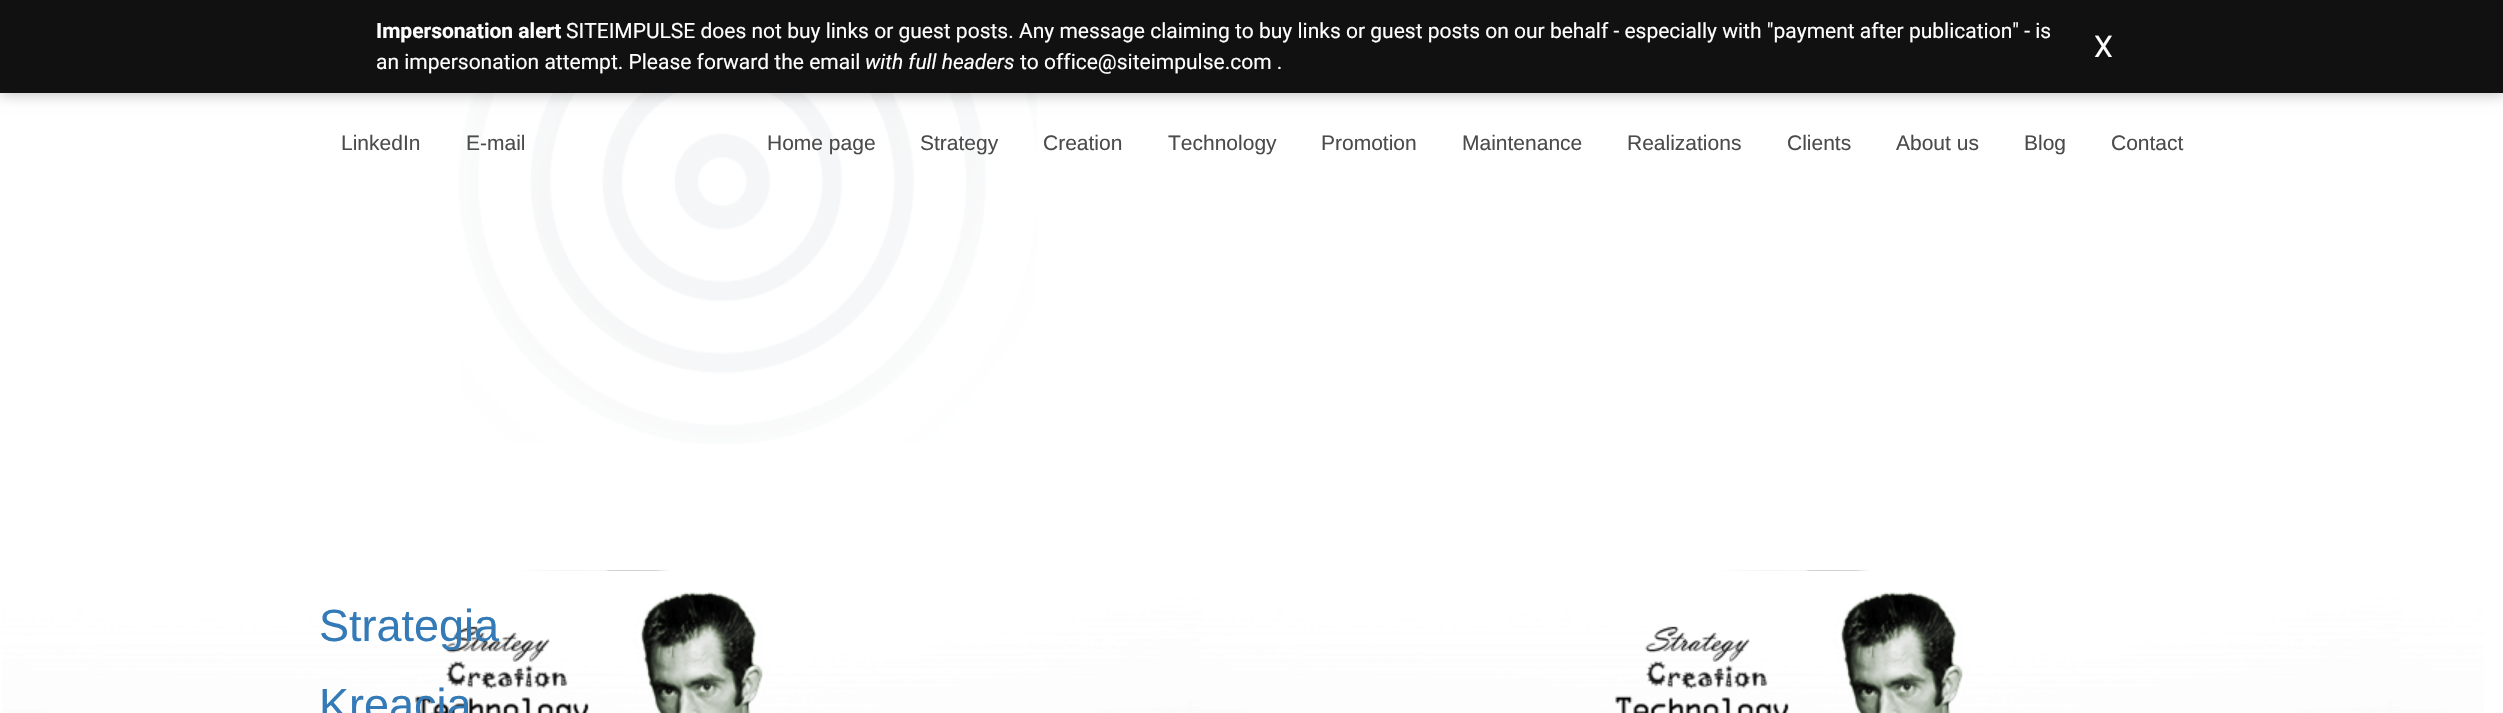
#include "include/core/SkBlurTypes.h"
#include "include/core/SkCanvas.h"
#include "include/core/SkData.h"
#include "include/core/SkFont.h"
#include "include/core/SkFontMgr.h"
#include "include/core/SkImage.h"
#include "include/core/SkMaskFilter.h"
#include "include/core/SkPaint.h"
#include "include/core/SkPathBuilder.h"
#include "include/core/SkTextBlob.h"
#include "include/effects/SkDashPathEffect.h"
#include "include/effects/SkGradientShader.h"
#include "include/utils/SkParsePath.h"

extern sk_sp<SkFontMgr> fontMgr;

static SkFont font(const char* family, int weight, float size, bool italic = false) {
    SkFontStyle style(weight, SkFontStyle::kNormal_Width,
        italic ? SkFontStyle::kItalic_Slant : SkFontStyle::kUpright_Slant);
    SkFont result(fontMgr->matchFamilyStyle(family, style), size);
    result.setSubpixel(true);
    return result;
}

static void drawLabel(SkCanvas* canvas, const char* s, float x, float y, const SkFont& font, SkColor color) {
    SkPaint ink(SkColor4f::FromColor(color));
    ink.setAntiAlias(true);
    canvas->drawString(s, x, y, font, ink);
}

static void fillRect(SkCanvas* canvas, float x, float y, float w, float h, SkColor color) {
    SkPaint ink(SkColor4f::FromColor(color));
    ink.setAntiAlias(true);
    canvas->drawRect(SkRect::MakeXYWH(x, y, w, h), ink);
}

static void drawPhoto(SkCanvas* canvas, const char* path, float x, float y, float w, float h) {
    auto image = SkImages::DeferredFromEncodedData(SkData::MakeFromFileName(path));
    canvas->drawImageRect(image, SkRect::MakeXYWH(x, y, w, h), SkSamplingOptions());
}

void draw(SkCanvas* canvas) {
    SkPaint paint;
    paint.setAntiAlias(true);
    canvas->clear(0xFFFFFFFF);
    drawPhoto(canvas, "assets/img1.png", 459, 93, 578, 351);
    paint.setColor(0x33000000);
    paint.setMaskFilter(SkMaskFilter::MakeBlur(kNormal_SkBlurStyle, 6));
    canvas->drawRect(SkRect::MakeXYWH(0, 3, 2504, 93), paint);
    paint.setMaskFilter(nullptr);
    fillRect(canvas, 0, 0, 2503, 93, 0xFF111111);
    SkFont font1 = font("Roboto", 700, 21);
    drawLabel(canvas, "Impersonation alert", 376, 38, font1, 0xFFFFFFFF);
    SkFont font2 = font("Roboto", 400, 21);
    drawLabel(canvas, "SITEIMPULSE does not buy links or guest posts. Any message claiming to buy links or guest posts on our behalf - especially with \"payment after publication\" - is", 566, 38, font2, 0xFFFFFFFF);
    drawLabel(canvas, "an impersonation attempt. Please forward the email", 376, 69, font2, 0xFFFFFFFF);
    SkFont font3 = font("Roboto", 400, 21, true);
    drawLabel(canvas, "with full headers", 865, 69, font3, 0xFFFFFFFF);
    drawLabel(canvas, "to office@siteimpulse.com .", 1020, 69, font2, 0xFFFFFFFF);
    SkFont font4 = font("Roboto", 400, 30);
    drawLabel(canvas, "X", 2094, 57, font4, 0xFFFFFFFF);
    SkFont font5 = font("Liberation Sans", 400, 21);
    drawLabel(canvas, "LinkedIn", 341, 150, font5, 0xFF4B4B4B);
    drawLabel(canvas, "E-mail", 466, 150, font5, 0xFF4B4B4B);
    drawLabel(canvas, "Home page", 767, 150, font5, 0xFF4B4B4B);
    drawLabel(canvas, "Strategy", 920, 150, font5, 0xFF4B4B4B);
    drawLabel(canvas, "Creation", 1043, 150, font5, 0xFF4B4B4B);
    drawLabel(canvas, "Technology", 1168, 150, font5, 0xFF4B4B4B);
    drawLabel(canvas, "Promotion", 1321, 150, font5, 0xFF4B4B4B);
    drawLabel(canvas, "Maintenance", 1462, 150, font5, 0xFF4B4B4B);
    drawLabel(canvas, "Realizations", 1627, 150, font5, 0xFF4B4B4B);
    drawLabel(canvas, "Clients", 1787, 150, font5, 0xFF4B4B4B);
    drawLabel(canvas, "About us", 1896, 150, font5, 0xFF4B4B4B);
    drawLabel(canvas, "Blog", 2024, 150, font5, 0xFF4B4B4B);
    drawLabel(canvas, "Contact", 2111, 150, font5, 0xFF4B4B4B);
    drawPhoto(canvas, "assets/img2.png", 2, 570, 2482, 143);
    SkFont font6 = font("Liberation Sans", 400, 45);
    drawLabel(canvas, "Strategia", 319, 641, font6, 0xFF337AB7);
    drawLabel(canvas, "Kreacja", 319, 720, font6, 0xFF337AB7);
}
